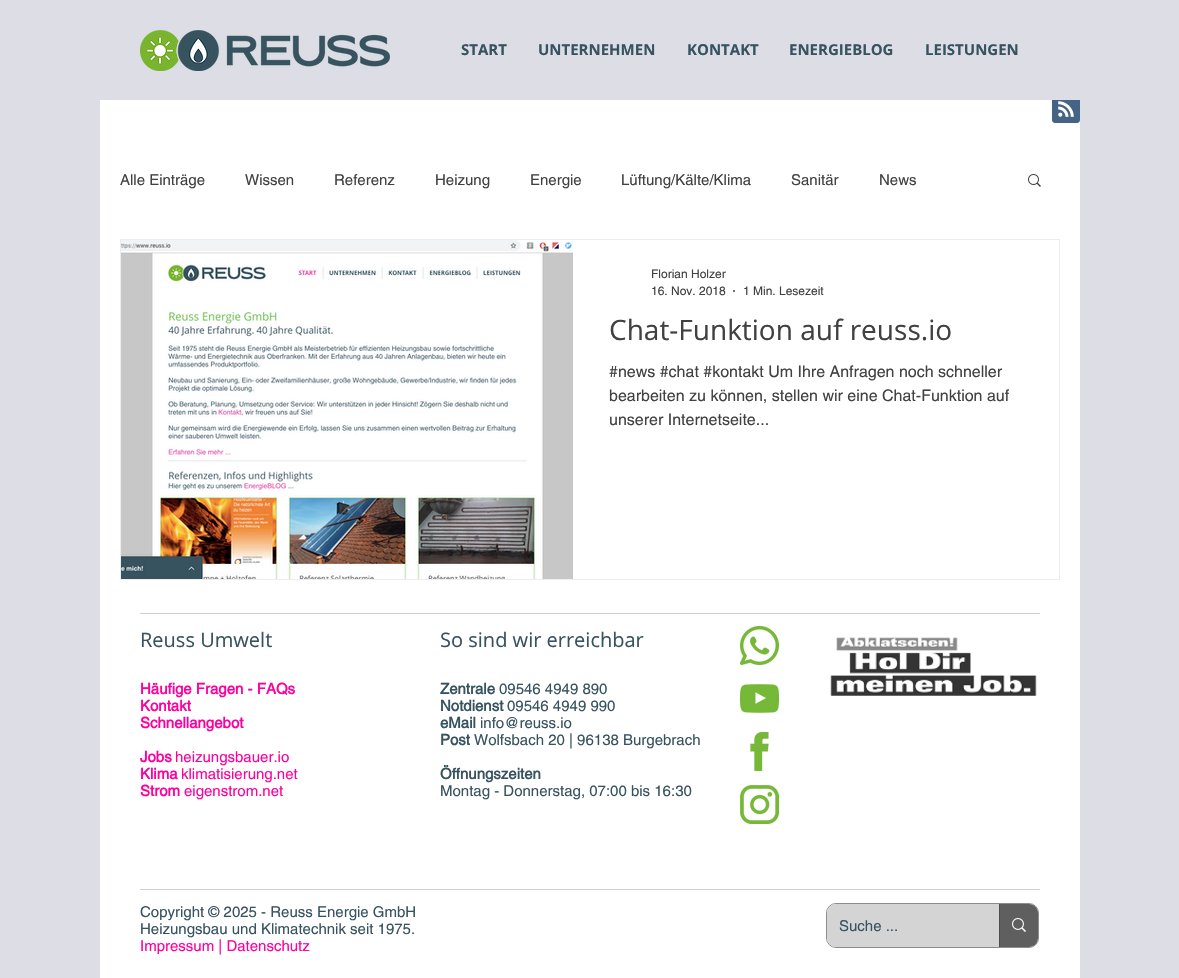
#include "include/core/SkBlurTypes.h"
#include "include/core/SkCanvas.h"
#include "include/core/SkData.h"
#include "include/core/SkFont.h"
#include "include/core/SkFontMgr.h"
#include "include/core/SkImage.h"
#include "include/core/SkMaskFilter.h"
#include "include/core/SkPaint.h"
#include "include/core/SkPathBuilder.h"
#include "include/core/SkTextBlob.h"
#include "include/effects/SkDashPathEffect.h"
#include "include/effects/SkGradientShader.h"
#include "include/utils/SkParsePath.h"

extern sk_sp<SkFontMgr> fontMgr;

static SkFont font(const char* family, int weight, float size, bool italic = false) {
    SkFontStyle style(weight, SkFontStyle::kNormal_Width,
        italic ? SkFontStyle::kItalic_Slant : SkFontStyle::kUpright_Slant);
    SkFont result(fontMgr->matchFamilyStyle(family, style), size);
    result.setSubpixel(true);
    return result;
}

static void drawLabel(SkCanvas* canvas, const char* s, float x, float y, const SkFont& font, SkColor color) {
    SkPaint ink(SkColor4f::FromColor(color));
    ink.setAntiAlias(true);
    canvas->drawString(s, x, y, font, ink);
}

static void fillRect(SkCanvas* canvas, float x, float y, float w, float h, SkColor color) {
    SkPaint ink(SkColor4f::FromColor(color));
    ink.setAntiAlias(true);
    canvas->drawRect(SkRect::MakeXYWH(x, y, w, h), ink);
}

static void fillRRect(SkCanvas* canvas, float x, float y, float w, float h, float radius, SkColor color) {
    SkPaint ink(SkColor4f::FromColor(color));
    ink.setAntiAlias(true);
    canvas->drawRoundRect(SkRect::MakeXYWH(x, y, w, h), radius, radius, ink);
}

static void drawPhoto(SkCanvas* canvas, const char* path, float x, float y, float w, float h) {
    auto image = SkImages::DeferredFromEncodedData(SkData::MakeFromFileName(path));
    canvas->drawImageRect(image, SkRect::MakeXYWH(x, y, w, h), SkSamplingOptions());
}

static SkPath parsePath(const char* data, bool evenOdd = false) {
    SkPath result = *SkParsePath::FromSVGString(data);
    if (evenOdd) result.setFillType(SkPathFillType::kEvenOdd);
    return result;
}

void draw(SkCanvas* canvas) {
    SkPaint paint;
    paint.setAntiAlias(true);
    canvas->clear(0xFFDDDEE5);
    drawPhoto(canvas, "assets/img1.png", 140, 30, 250, 41);
    SkFont font1 = font("Open Sans", 700, 15);
    drawLabel(canvas, "START", 461, 55, font1, 0xFF37535F);
    drawLabel(canvas, "UNTERNEHMEN", 538, 55, font1, 0xFF37535F);
    drawLabel(canvas, "KONTAKT", 687, 55, font1, 0xFF37535F);
    drawLabel(canvas, "ENERGIEBLOG", 789, 55, font1, 0xFF37535F);
    drawLabel(canvas, "LEISTUNGEN", 925, 55, font1, 0xFF37535F);
    fillRect(canvas, 100, 100, 980, 878, 0xFFFFFFFF);
    drawPhoto(canvas, "assets/img2.png", 1052, 100, 28, 23);
    SkFont font2 = font("helvetica", 400, 15);
    drawLabel(canvas, "Alle Einträge", 120, 185, font2, 0xFF414141);
    drawLabel(canvas, "Wissen", 245, 185, font2, 0xFF414141);
    drawLabel(canvas, "Referenz", 334, 185, font2, 0xFF414141);
    drawLabel(canvas, "Heizung", 435, 185, font2, 0xFF414141);
    drawLabel(canvas, "Energie", 530, 185, font2, 0xFF414141);
    drawLabel(canvas, "Lüftung/Kälte/Klima", 621, 185, font2, 0xFF414141);
    drawLabel(canvas, "Sanitär", 791, 185, font2, 0xFF414141);
    drawLabel(canvas, "News", 879, 185, font2, 0xFF414141);
    drawPhoto(canvas, "assets/img3.png", 1028, 174, 13, 13);
    paint.setStroke(true);
    paint.setStrokeWidth(1);
    paint.setColor(0xFFEEECEC);
    canvas->drawRect(SkRect::MakeXYWH(120.5f, 239.5f, 939, 340), paint);
    drawPhoto(canvas, "assets/img4.png", 121, 240, 452, 339);
    SkFont font3 = font("helvetica", 400, 12);
    drawLabel(canvas, "Florian Holzer", 651, 278, font3, 0xFF414141);
    drawLabel(canvas, "16. Nov. 2018", 651, 295, font3, 0xFF414141);
    paint.setStroke(false);
    paint.setColor(0xFF414141);
    canvas->drawCircle(734, 291, 1, paint);
    drawLabel(canvas, "1 Min. Lesezeit", 743, 295, font3, 0xFF414141);
    SkFont font4 = font("Open Sans", 400, 28);
    drawLabel(canvas, "Chat-Funktion auf reuss.io", 609, 340, font4, 0xFF414141);
    SkFont font5 = font("helvetica", 400, 16);
    drawLabel(canvas, "#news #chat #kontakt Um Ihre Anfragen noch schneller", 609, 377, font5, 0xFF414141);
    drawLabel(canvas, "bearbeiten zu können, stellen wir eine Chat-Funktion auf", 609, 401, font5, 0xFF414141);
    drawLabel(canvas, "unserer Internetseite...", 609, 425, font5, 0xFF414141);
    fillRect(canvas, 140, 613, 900, 1, 0xFFCBD2D6);
    SkFont font6 = font("Open Sans", 400, 20);
    drawLabel(canvas, "Reuss Umwelt", 140, 647, font6, 0xFF37535F);
    SkFont font7 = font("helvetica", 700, 15);
    drawLabel(canvas, "Häufige Fragen - FAQs", 140, 694, font7, 0xFFFF009F);
    drawLabel(canvas, "Kontakt", 140, 711, font7, 0xFFFF009F);
    drawLabel(canvas, "Schnellangebot", 140, 728, font7, 0xFFFF009F);
    drawLabel(canvas, "Jobs", 140, 762, font7, 0xFFFF009F);
    drawLabel(canvas, "heizungsbauer.io", 175, 762, font2, 0xFFFF009F);
    drawLabel(canvas, "Klima", 140, 779, font7, 0xFFFF009F);
    drawLabel(canvas, "klimatisierung.net", 181, 779, font2, 0xFFFF009F);
    drawLabel(canvas, "Strom", 140, 796, font7, 0xFFFF009F);
    drawLabel(canvas, "eigenstrom.net", 184, 796, font2, 0xFFFF009F);
    drawLabel(canvas, "So sind wir erreichbar", 440, 647, font6, 0xFF37535F);
    drawLabel(canvas, "Zentrale", 440, 694, font7, 0xFF37535F);
    drawLabel(canvas, "09546 4949 890", 499, 694, font2, 0xFF37535F);
    drawLabel(canvas, "Notdienst", 440, 711, font7, 0xFF37535F);
    drawLabel(canvas, "09546 4949 990", 507, 711, font2, 0xFF37535F);
    drawLabel(canvas, "eMail", 440, 728, font7, 0xFF37535F);
    drawLabel(canvas, "info@reuss.io", 480, 728, font2, 0xFF37535F);
    drawLabel(canvas, "Post", 440, 745, font7, 0xFF37535F);
    drawLabel(canvas, "Wolfsbach 20 | 96138 Burgebrach", 474, 745, font2, 0xFF37535F);
    drawLabel(canvas, "Öffnungszeiten", 440, 779, font7, 0xFF37535F);
    drawLabel(canvas, "Montag - Donnerstag, 07:00 bis 16:30", 440, 796, font2, 0xFF37535F);
    drawPhoto(canvas, "assets/img5.png", 740, 626, 39, 39);
    drawPhoto(canvas, "assets/img6.png", 740, 684, 39, 29);
    drawPhoto(canvas, "assets/img7.png", 750, 732, 19, 39);
    drawPhoto(canvas, "assets/img8.png", 740, 785, 39, 39);
    drawPhoto(canvas, "assets/img9.png", 830, 637, 207, 59);
    fillRect(canvas, 140, 889, 900, 1, 0xFFCBD2D6);
    drawLabel(canvas, "Copyright © 2025 - Reuss Energie GmbH", 140, 917, font2, 0xFF37535F);
    drawLabel(canvas, "Heizungsbau und Klimatechnik seit 1975.", 140, 934, font2, 0xFF37535F);
    drawLabel(canvas, "Impressum | Datenschutz", 140, 951, font2, 0xFFFF009F);
    paint.setStroke(true);
    paint.setColor(0xFF8D8D8D);
    canvas->drawRoundRect(SkRect::MakeXYWH(826.5f, 903.5f, 212, 44), 9.5f, 9.5f, paint);
    fillRRect(canvas, 827, 904, 211, 43, 9, 0xFFD4D4D4);
    drawLabel(canvas, "Suche ...", 839, 931, font2, 0xFF37535F);
    paint.setStroke(false);
    paint.setColor(0xCC414141);
    canvas->drawPath(parsePath("M999 904H1029C1034 904 1038 908 1038 913V938C1038 943 1034 947 1029 947H999Z"), paint);
    fillRect(canvas, 999, 904, 1, 43, 0xFF4D4D4D);
    drawPhoto(canvas, "assets/img10.png", 1012, 918, 14, 14);
}
